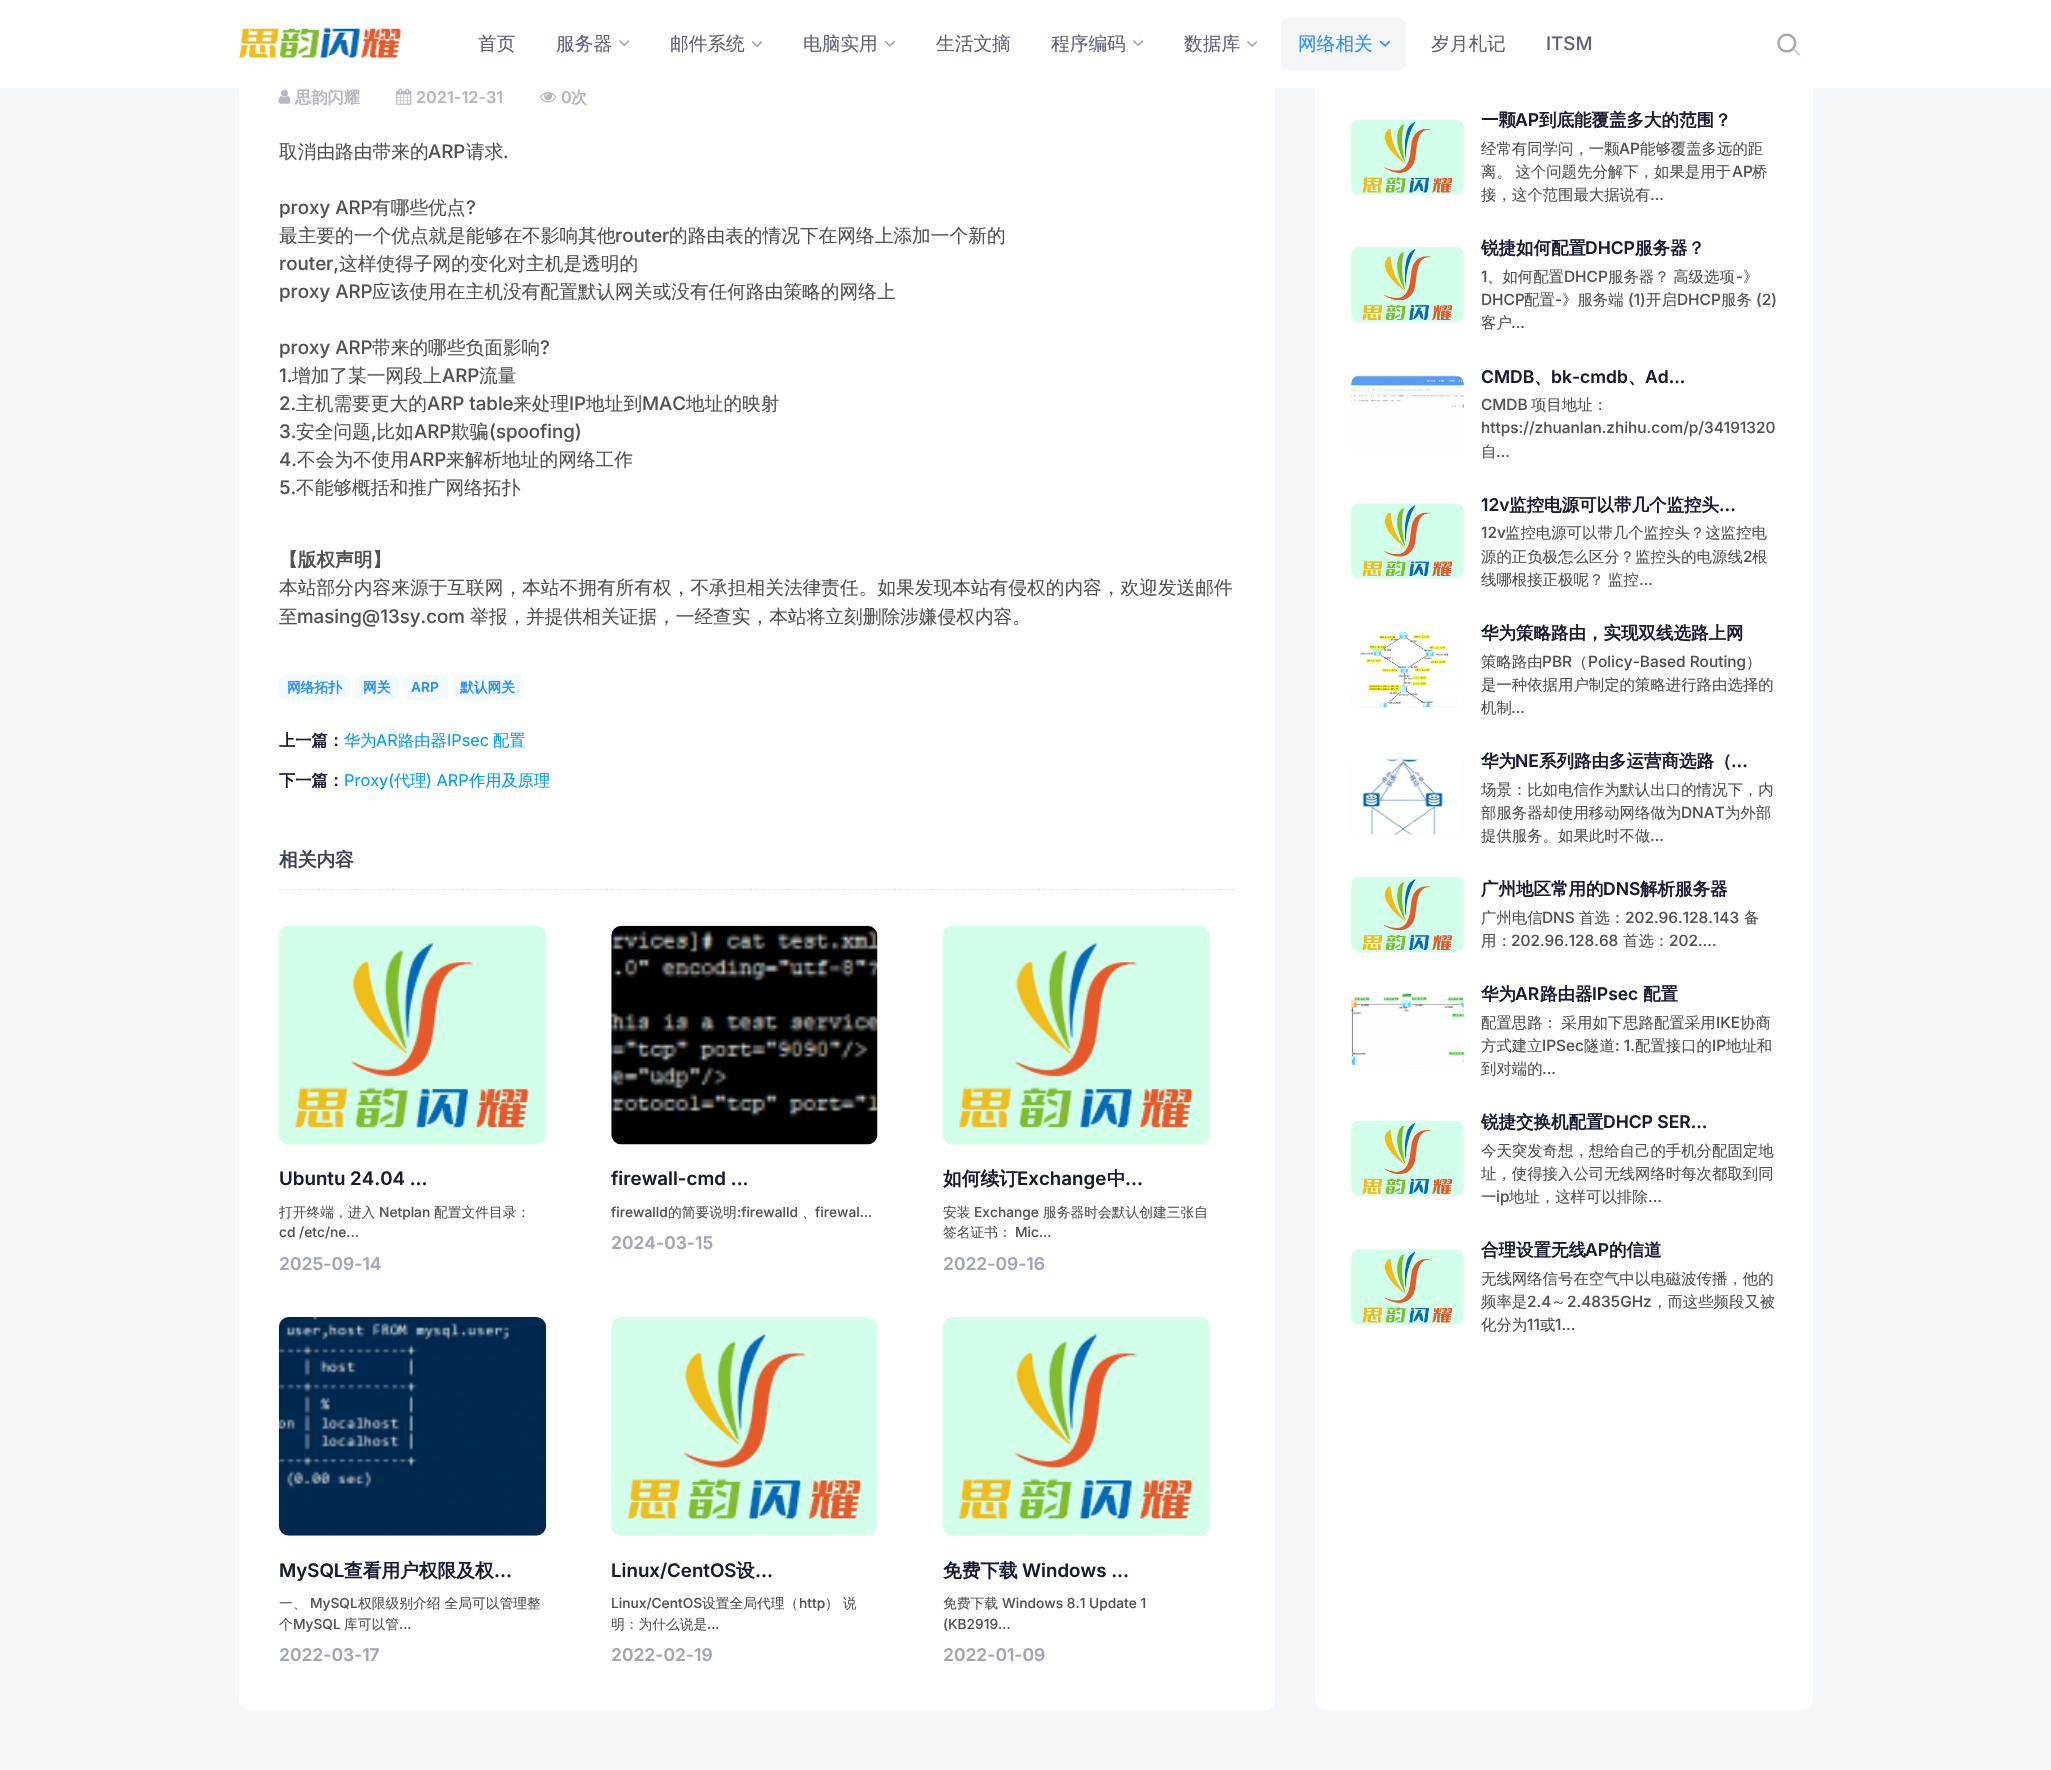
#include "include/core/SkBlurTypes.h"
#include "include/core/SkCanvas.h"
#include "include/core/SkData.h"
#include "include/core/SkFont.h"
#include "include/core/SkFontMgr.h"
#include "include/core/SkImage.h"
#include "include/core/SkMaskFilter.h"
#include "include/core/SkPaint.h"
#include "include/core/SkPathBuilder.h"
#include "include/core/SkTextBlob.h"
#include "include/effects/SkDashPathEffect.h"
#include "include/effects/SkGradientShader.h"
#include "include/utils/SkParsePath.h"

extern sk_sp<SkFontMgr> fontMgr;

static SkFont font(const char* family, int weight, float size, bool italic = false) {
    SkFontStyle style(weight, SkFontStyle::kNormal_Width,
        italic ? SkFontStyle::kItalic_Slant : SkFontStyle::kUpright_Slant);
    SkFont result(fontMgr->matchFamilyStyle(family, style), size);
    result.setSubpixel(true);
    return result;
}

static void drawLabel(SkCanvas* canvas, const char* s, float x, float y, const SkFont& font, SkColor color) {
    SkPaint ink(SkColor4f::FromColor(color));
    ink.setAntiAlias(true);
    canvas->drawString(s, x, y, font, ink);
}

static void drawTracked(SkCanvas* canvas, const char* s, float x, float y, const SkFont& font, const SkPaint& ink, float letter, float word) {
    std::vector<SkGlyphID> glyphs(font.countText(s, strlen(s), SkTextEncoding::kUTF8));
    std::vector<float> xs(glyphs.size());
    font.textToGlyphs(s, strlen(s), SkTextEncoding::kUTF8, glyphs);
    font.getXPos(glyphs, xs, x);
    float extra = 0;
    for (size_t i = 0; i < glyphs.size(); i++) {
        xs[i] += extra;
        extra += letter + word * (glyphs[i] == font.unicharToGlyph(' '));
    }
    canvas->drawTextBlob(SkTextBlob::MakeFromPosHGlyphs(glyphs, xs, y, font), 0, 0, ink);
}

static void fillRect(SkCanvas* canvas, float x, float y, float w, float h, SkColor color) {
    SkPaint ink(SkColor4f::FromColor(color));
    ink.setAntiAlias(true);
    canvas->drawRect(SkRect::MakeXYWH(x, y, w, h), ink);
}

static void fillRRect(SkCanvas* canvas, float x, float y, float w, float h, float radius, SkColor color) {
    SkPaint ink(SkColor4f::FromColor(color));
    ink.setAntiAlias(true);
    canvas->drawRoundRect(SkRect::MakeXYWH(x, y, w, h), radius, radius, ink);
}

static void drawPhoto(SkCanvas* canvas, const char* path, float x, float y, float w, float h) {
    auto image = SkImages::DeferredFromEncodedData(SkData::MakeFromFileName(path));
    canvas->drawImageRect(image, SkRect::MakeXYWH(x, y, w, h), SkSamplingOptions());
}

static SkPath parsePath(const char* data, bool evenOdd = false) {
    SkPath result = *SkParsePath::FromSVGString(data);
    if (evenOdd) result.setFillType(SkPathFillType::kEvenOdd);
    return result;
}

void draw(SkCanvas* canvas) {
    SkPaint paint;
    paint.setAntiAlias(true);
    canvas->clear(0xFFF5F8FA);
    fillRRect(canvas, 239, 8, 1036, 1702, 10, 0xFFFFFFFF);
    fillRRect(canvas, 1315, 8, 498, 1702, 10, 0xFFFFFFFF);
    fillRect(canvas, 0, 0, 2051, 88, 0xFFFFFFFF);
    drawPhoto(canvas, "assets/img1.png", 238, 27, 164, 31);
    SkFont font1 = font("WenQuanYi Zen Hei", 500, 18.7f);
    drawLabel(canvas, "首页", 478, 50, font1, 0xFF5E6278);
    drawLabel(canvas, "服务器", 556, 50, font1, 0xFF5E6278);
    drawPhoto(canvas, "assets/img2.png", 619, 40, 10, 7);
    drawLabel(canvas, "邮件系统", 670, 50, font1, 0xFF5E6278);
    drawPhoto(canvas, "assets/img3.png", 752, 41, 10, 6);
    drawLabel(canvas, "电脑实用", 803, 50, font1, 0xFF5E6278);
    drawPhoto(canvas, "assets/img4.png", 884, 40, 11, 7);
    drawLabel(canvas, "生活文摘", 936, 50, font1, 0xFF5E6278);
    drawLabel(canvas, "程序编码", 1051, 50, font1, 0xFF5E6278);
    drawPhoto(canvas, "assets/img5.png", 1133, 40, 10, 6);
    drawLabel(canvas, "数据库", 1184, 50, font1, 0xFF5E6278);
    drawPhoto(canvas, "assets/img6.png", 1247, 41, 10, 6);
    fillRRect(canvas, 1281, 18, 125, 52, 8, 0xFFF4F6FA);
    drawLabel(canvas, "网络相关", 1298, 50, font1, 0xFF2890FF);
    drawPhoto(canvas, "assets/img7.png", 1379, 40, 11, 7);
    drawLabel(canvas, "岁月札记", 1431, 50, font1, 0xFF5E6278);
    SkFont font2 = font("Inter", 500, 18.7f);
    drawLabel(canvas, "ITSM", 1546, 50, font2, 0xFF5E6278);
    drawPhoto(canvas, "assets/img8.png", 1777, 33, 24, 23);
    drawPhoto(canvas, "assets/img9.png", 278, 89, 13, 15);
    SkFont font3 = font("WenQuanYi Zen Hei", 700, 16.25f);
    drawLabel(canvas, "思韵闪耀", 295, 103, font3, 0xFFB5B5C3);
    drawPhoto(canvas, "assets/img10.png", 396, 88, 16, 17);
    SkFont font4 = font("Inter", 600, 16.25f);
    drawLabel(canvas, "2021-12-31", 416, 103, font4, 0xFFB5B5C3);
    drawPhoto(canvas, "assets/img11.png", 540, 92, 17, 11);
    drawLabel(canvas, "0", 561, 103, font4, 0xFFB5B5C3);
    drawLabel(canvas, "次", 571, 103, font3, 0xFFB5B5C3);
    drawLabel(canvas, "取消由路由带来的", 279, 158, font1, 0xFF525252);
    drawLabel(canvas, "ARP", 428, 158, font2, 0xFF525252);
    drawLabel(canvas, "请求", 466, 158, font1, 0xFF525252);
    drawLabel(canvas, ".", 503, 158, font2, 0xFF525252);
    drawLabel(canvas, "proxy ARP", 279, 214, font2, 0xFF525252);
    drawLabel(canvas, "有哪些优点", 372, 214, font1, 0xFF525252);
    drawLabel(canvas, "?", 466, 214, font2, 0xFF525252);
    drawLabel(canvas, "最主要的一个优点就是能够在不影响其他", 279, 242, font1, 0xFF525252);
    drawLabel(canvas, "router", 615, 242, font2, 0xFF525252);
    drawLabel(canvas, "的路由表的情况下在网络上添加一个新的", 669, 242, font1, 0xFF525252);
    drawLabel(canvas, "router,", 279, 270, font2, 0xFF525252);
    drawLabel(canvas, "这样使得子网的变化对主机是透明的", 339, 270, font1, 0xFF525252);
    drawLabel(canvas, "proxy ARP", 279, 298, font2, 0xFF525252);
    drawLabel(canvas, "应该使用在主机没有配置默认网关或没有任何路由策略的网络上", 372, 298, font1, 0xFF525252);
    drawLabel(canvas, "proxy ARP", 279, 354, font2, 0xFF525252);
    drawLabel(canvas, "带来的哪些负面影响", 372, 354, font1, 0xFF525252);
    drawLabel(canvas, "?", 540, 354, font2, 0xFF525252);
    drawLabel(canvas, "1.", 279, 382, font2, 0xFF525252);
    drawLabel(canvas, "增加了某一网段上", 292, 382, font1, 0xFF525252);
    drawLabel(canvas, "ARP", 442, 382, font2, 0xFF525252);
    drawLabel(canvas, "流量", 479, 382, font1, 0xFF525252);
    drawLabel(canvas, "2.", 279, 410, font2, 0xFF525252);
    drawLabel(canvas, "主机需要更大的", 296, 410, font1, 0xFF525252);
    drawLabel(canvas, "ARP table", 427, 410, font2, 0xFF525252);
    drawLabel(canvas, "来处理", 513, 410, font1, 0xFF525252);
    drawLabel(canvas, "IP", 569, 410, font2, 0xFF525252);
    drawLabel(canvas, "地址到", 586, 410, font1, 0xFF525252);
    drawLabel(canvas, "MAC", 642, 410, font2, 0xFF525252);
    drawLabel(canvas, "地址的映射", 686, 410, font1, 0xFF525252);
    drawLabel(canvas, "3.", 279, 438, font2, 0xFF525252);
    drawLabel(canvas, "安全问题 比如", 296, 438, font1, 0xFF525252);
    drawLabel(canvas, "ARP", 414, 438, font2, 0xFF525252);
    drawLabel(canvas, "欺骗", 451, 438, font1, 0xFF525252);
    drawLabel(canvas, "(spoofing)", 489, 438, font2, 0xFF525252);
    drawLabel(canvas, ",", 371, 438, font2, 0xFF525252);
    drawLabel(canvas, "4.", 279, 466, font2, 0xFF525252);
    drawLabel(canvas, "不会为不使用", 297, 466, font1, 0xFF525252);
    drawLabel(canvas, "ARP", 409, 466, font2, 0xFF525252);
    drawLabel(canvas, "来解析地址的网络工作", 446, 466, font1, 0xFF525252);
    drawLabel(canvas, "5.", 279, 494, font2, 0xFF525252);
    drawLabel(canvas, "不能够概括和推广网络拓扑", 296, 494, font1, 0xFF525252);
    SkFont font5 = font("WenQuanYi Zen Hei", 700, 18.7f);
    drawLabel(canvas, "【版权声明】", 279, 566, font5, 0xFF525252);
    drawLabel(canvas, "本站部分内容来源于互联网，本站不拥有所有权，不承担相关法律责任。如果发现本站有侵权的内容，欢迎发送邮件", 279, 594, font1, 0xFF525252);
    drawLabel(canvas, "至", 279, 623, font1, 0xFF525252);
    drawLabel(canvas, "masing@13sy.com", 297, 623, font2, 0xFF525252);
    drawLabel(canvas, "举报，并提供相关证据，一经查实，本站将立刻删除涉嫌侵权内容。", 470, 623, font1, 0xFF525252);
    fillRRect(canvas, 279, 675, 71, 25, 8, 0xFFF1FAFF);
    SkFont font6 = font("WenQuanYi Zen Hei", 700, 13.75f);
    drawLabel(canvas, "网络拓扑", 287, 692, font6, 0xFF2890FF);
    fillRRect(canvas, 355, 675, 44, 25, 8, 0xFFF1FAFF);
    drawLabel(canvas, "网关", 363, 692, font6, 0xFF2890FF);
    fillRRect(canvas, 404, 675, 44, 25, 8, 0xFFF1FAFF);
    SkFont font7 = font("Inter", 600, 13.75f);
    drawLabel(canvas, "ARP", 411, 692, font7, 0xFF2890FF);
    fillRRect(canvas, 453, 675, 71, 25, 8, 0xFFF1FAFF);
    drawLabel(canvas, "默认网关", 460, 692, font6, 0xFF2890FF);
    drawLabel(canvas, "上一篇：", 279, 746, font3, 0xFF181C32);
    SkFont font8 = font("WenQuanYi Zen Hei", 500, 16.25f);
    drawLabel(canvas, "华为", 344, 746, font8, 0xFF009EF7);
    SkFont font9 = font("Inter", 400, 16.25f);
    drawLabel(canvas, "AR", 376, 746, font9, 0xFF009EF7);
    drawLabel(canvas, "路由器", 398, 746, font8, 0xFF009EF7);
    drawLabel(canvas, "IPsec", 447, 746, font9, 0xFF009EF7);
    drawLabel(canvas, "配置", 493, 746, font8, 0xFF009EF7);
    drawLabel(canvas, "下一篇：", 279, 786, font3, 0xFF181C32);
    drawLabel(canvas, "Proxy(", 344, 786, font9, 0xFF009EF7);
    drawLabel(canvas, "代理", 394, 786, font8, 0xFF009EF7);
    drawLabel(canvas, ") ARP", 426, 786, font9, 0xFF009EF7);
    drawLabel(canvas, "作用及原理", 469, 786, font8, 0xFF009EF7);
    drawLabel(canvas, "相关内容", 279, 866, font5, 0xFF3F4254);
    paint.setStroke(true);
    paint.setStrokeWidth(1.2f);
    paint.setColor(0xFFE1E3EA);
    paint.setPathEffect(SkDashPathEffect::Make({{3.75f, 2.51f}}, 0));
    canvas->drawPath(parsePath("M279 889.5H1234"), paint);
    paint.setPathEffect(nullptr);
    drawPhoto(canvas, "assets/img12.png", 278, 925, 269, 220);
    SkFont font10 = font("Inter", 600, 18.7f);
    drawLabel(canvas, "Ubuntu 24.04 ...", 279, 1185, font10, 0xFF181C32);
    SkFont font11 = font("WenQuanYi Zen Hei", 500, 13.75f);
    drawLabel(canvas, "打开终端，进入", 279, 1217, font11, 0xFF525252);
    SkFont font12 = font("Inter", 500, 13.75f);
    drawLabel(canvas, "Netplan", 379, 1217, font12, 0xFF525252);
    drawLabel(canvas, "配置文件目录：", 434, 1217, font11, 0xFF525252);
    drawLabel(canvas, "cd /etc/ne...", 279, 1237, font12, 0xFF525252);
    SkFont font13 = font("Inter", 600, 17.5f);
    drawLabel(canvas, "2025-09-14", 279, 1270, font13, 0xFFA1A5B7);
    drawPhoto(canvas, "assets/img13.png", 611, 925, 267, 220);
    drawLabel(canvas, "firewall-cmd ...", 611, 1185, font10, 0xFF181C32);
    drawLabel(canvas, "firewalld", 611, 1217, font12, 0xFF525252);
    drawLabel(canvas, "的简要说明", 668, 1217, font11, 0xFF525252);
    drawLabel(canvas, ":firewalld", 737, 1217, font12, 0xFF525252);
    drawLabel(canvas, "、", 802, 1217, font11, 0xFF525252);
    drawLabel(canvas, "firewal...", 815, 1217, font12, 0xFF525252);
    drawLabel(canvas, "2024-03-15", 611, 1249, font13, 0xFFA1A5B7);
    drawPhoto(canvas, "assets/img14.png", 942, 925, 268, 220);
    drawLabel(canvas, "如何续订", 943, 1185, font5, 0xFF181C32);
    drawLabel(canvas, "Exchange", 1017, 1185, font10, 0xFF181C32);
    drawLabel(canvas, "中", 1107, 1185, font5, 0xFF181C32);
    drawLabel(canvas, "...", 1125, 1185, font10, 0xFF181C32);
    drawLabel(canvas, "安装", 943, 1217, font11, 0xFF525252);
    drawLabel(canvas, "Exchange", 974, 1217, font12, 0xFF525252);
    drawLabel(canvas, "服务器时会默认创建三张自", 1043, 1217, font11, 0xFF525252);
    drawLabel(canvas, "签名证书：", 943, 1237, font11, 0xFF525252);
    drawLabel(canvas, "Mic...", 1015, 1237, font12, 0xFF525252);
    drawLabel(canvas, "2022-09-16", 943, 1270, font13, 0xFFA1A5B7);
    drawPhoto(canvas, "assets/img15.png", 278, 1317, 269, 219);
    drawLabel(canvas, "MySQL", 279, 1577, font10, 0xFF181C32);
    drawLabel(canvas, "查看用户权限及权", 344, 1577, font5, 0xFF181C32);
    drawLabel(canvas, "...", 494, 1577, font10, 0xFF181C32);
    drawLabel(canvas, "一、", 279, 1608, font11, 0xFF525252);
    drawLabel(canvas, "MySQL", 310, 1608, font12, 0xFF525252);
    drawLabel(canvas, "权限级别介绍 全局可以管理整", 358, 1608, font11, 0xFF525252);
    drawLabel(canvas, "个", 279, 1629, font11, 0xFF525252);
    drawLabel(canvas, "MySQL", 293, 1629, font12, 0xFF525252);
    drawLabel(canvas, "库可以管", 344, 1629, font11, 0xFF525252);
    drawLabel(canvas, "...", 399, 1629, font12, 0xFF525252);
    drawLabel(canvas, "2022-03-17", 279, 1661, font13, 0xFFA1A5B7);
    drawPhoto(canvas, "assets/img16.png", 611, 1317, 267, 219);
    drawLabel(canvas, "Linux/CentOS", 611, 1577, font10, 0xFF181C32);
    drawLabel(canvas, "设", 736, 1577, font5, 0xFF181C32);
    drawLabel(canvas, "...", 755, 1577, font10, 0xFF181C32);
    drawLabel(canvas, "Linux/CentOS", 611, 1608, font12, 0xFF525252);
    drawLabel(canvas, "设置全局代理（", 702, 1608, font11, 0xFF525252);
    drawLabel(canvas, "http", 799, 1608, font12, 0xFF525252);
    drawLabel(canvas, "） 说", 825, 1608, font11, 0xFF525252);
    drawLabel(canvas, "明：为什么说是", 611, 1629, font11, 0xFF525252);
    drawLabel(canvas, "...", 707, 1629, font12, 0xFF525252);
    drawLabel(canvas, "2022-02-19", 611, 1661, font13, 0xFFA1A5B7);
    drawPhoto(canvas, "assets/img17.png", 942, 1317, 268, 219);
    drawLabel(canvas, "免费下载", 943, 1577, font5, 0xFF181C32);
    drawLabel(canvas, "Windows ...", 1022, 1577, font10, 0xFF181C32);
    drawLabel(canvas, "免费下载", 943, 1608, font11, 0xFF525252);
    drawLabel(canvas, "Windows 8.1 Update 1", 1002, 1608, font12, 0xFF525252);
    drawLabel(canvas, "(KB2919...", 943, 1629, font12, 0xFF525252);
    drawLabel(canvas, "2022-01-09", 943, 1661, font13, 0xFFA1A5B7);
    fillRRect(canvas, 1351, 120, 113, 75, 8, 0xFFF9F9F9);
    drawPhoto(canvas, "assets/img18.png", 1351, 119, 113, 76);
    SkFont font14 = font("WenQuanYi Zen Hei", 700, 17.5f);
    drawLabel(canvas, "一颗", 1481, 126, font14, 0xFF181C32);
    drawLabel(canvas, "AP", 1515, 126, font13, 0xFF181C32);
    drawLabel(canvas, "到底能覆盖多大的范围？", 1539, 126, font14, 0xFF181C32);
    SkFont font15 = font("WenQuanYi Zen Hei", 500, 15.4f);
    drawLabel(canvas, "经常有同学问，一颗", 1481, 154, font15, 0xFF525252);
    SkFont font16 = font("Inter", 500, 15.4f);
    drawLabel(canvas, "AP", 1619, 154, font16, 0xFF525252);
    drawLabel(canvas, "能够覆盖多远的距", 1640, 154, font15, 0xFF525252);
    paint.setStroke(false);
    paint.setColor(0xFF525252);
    drawTracked(canvas, "离。 这个问题先分解下，如果是用于", 1481, 177, font15, paint, 0, -1);
    drawLabel(canvas, "AP", 1732, 177, font16, 0xFF525252);
    drawLabel(canvas, "桥", 1752, 177, font15, 0xFF525252);
    drawLabel(canvas, "接，这个范围最大据说有", 1481, 200, font15, 0xFF525252);
    drawLabel(canvas, "...", 1650, 200, font16, 0xFF525252);
    fillRRect(canvas, 1351, 248, 113, 75, 8, 0xFFF9F9F9);
    drawPhoto(canvas, "assets/img19.png", 1351, 247, 113, 75);
    drawLabel(canvas, "锐捷如何配置", 1481, 254, font14, 0xFF181C32);
    drawLabel(canvas, "DHCP", 1585, 254, font13, 0xFF181C32);
    drawLabel(canvas, "服务器？", 1635, 254, font14, 0xFF181C32);
    drawLabel(canvas, "1", 1481, 282, font16, 0xFF525252);
    drawLabel(canvas, "、如何配置", 1487, 282, font15, 0xFF525252);
    drawLabel(canvas, "DHCP", 1564, 282, font16, 0xFF525252);
    drawTracked(canvas, "服务器？ 高级选项", 1608, 282, font15, paint, 0, -1);
    drawLabel(canvas, "-", 1736, 282, font16, 0xFF525252);
    drawLabel(canvas, "》", 1743, 282, font15, 0xFF525252);
    drawLabel(canvas, "DHCP", 1481, 305, font16, 0xFF525252);
    drawLabel(canvas, "配置", 1524, 305, font15, 0xFF525252);
    drawLabel(canvas, "-", 1555, 305, font16, 0xFF525252);
    drawLabel(canvas, "》服务端", 1562, 305, font15, 0xFF525252);
    drawLabel(canvas, "(1)", 1628, 305, font16, 0xFF525252);
    drawLabel(canvas, "开启", 1646, 305, font15, 0xFF525252);
    drawLabel(canvas, "DHCP", 1677, 305, font16, 0xFF525252);
    drawLabel(canvas, "服务", 1721, 305, font15, 0xFF525252);
    drawLabel(canvas, "(2)", 1756, 305, font16, 0xFF525252);
    drawLabel(canvas, "客户", 1481, 328, font15, 0xFF525252);
    drawLabel(canvas, "...", 1511, 328, font16, 0xFF525252);
    fillRRect(canvas, 1351, 376, 113, 75, 8, 0xFFF9F9F9);
    drawPhoto(canvas, "assets/img20.png", 1351, 375, 113, 76);
    drawLabel(canvas, "CMDB", 1481, 383, font13, 0xFF181C32);
    drawLabel(canvas, "、", 1534, 383, font14, 0xFF181C32);
    drawLabel(canvas, "bk-cmdb", 1551, 383, font13, 0xFF181C32);
    drawLabel(canvas, "、", 1628, 383, font14, 0xFF181C32);
    drawLabel(canvas, "Ad...", 1645, 383, font13, 0xFF181C32);
    drawLabel(canvas, "CMDB", 1481, 410, font16, 0xFF525252);
    drawLabel(canvas, "项目地址：", 1531, 410, font15, 0xFF525252);
    drawLabel(canvas, "https://zhuanlan.zhihu.com/p/34191320", 1481, 433, font16, 0xFF525252);
    drawLabel(canvas, "自", 1481, 457, font15, 0xFF525252);
    drawLabel(canvas, "...", 1496, 457, font16, 0xFF525252);
    fillRRect(canvas, 1351, 504, 113, 75, 8, 0xFFF9F9F9);
    drawPhoto(canvas, "assets/img21.png", 1351, 503, 113, 76);
    drawLabel(canvas, "12v", 1481, 511, font13, 0xFF181C32);
    drawLabel(canvas, "监控电源可以带几个监控头", 1509, 511, font14, 0xFF181C32);
    drawLabel(canvas, "...", 1719, 511, font13, 0xFF181C32);
    drawLabel(canvas, "12v", 1481, 538, font16, 0xFF525252);
    drawLabel(canvas, "监控电源可以带几个监控头？这监控电", 1505, 538, font15, 0xFF525252);
    drawLabel(canvas, "源的正负极怎么区分？监控头的电源线", 1481, 562, font15, 0xFF525252);
    drawLabel(canvas, "2", 1743, 562, font16, 0xFF525252);
    drawLabel(canvas, "根", 1752, 562, font15, 0xFF525252);
    drawTracked(canvas, "线哪根接正极呢？ 监控", 1481, 585, font15, paint, 0, -1);
    drawLabel(canvas, "...", 1639, 585, font16, 0xFF525252);
    fillRRect(canvas, 1351, 633, 113, 75, 8, 0xFFF9F9F9);
    drawPhoto(canvas, "assets/img22.png", 1351, 632, 113, 75);
    drawLabel(canvas, "华为策略路由，实现双线选路上网", 1481, 639, font14, 0xFF181C32);
    drawLabel(canvas, "策略路由", 1481, 667, font15, 0xFF525252);
    drawLabel(canvas, "PBR", 1542, 667, font16, 0xFF525252);
    drawLabel(canvas, "（", 1572, 667, font15, 0xFF525252);
    drawLabel(canvas, "Policy-Based Routing", 1588, 667, font16, 0xFF525252);
    drawLabel(canvas, "）", 1746, 667, font15, 0xFF525252);
    drawLabel(canvas, "是一种依据用户制定的策略进行路由选择的", 1481, 690, font15, 0xFF525252);
    drawLabel(canvas, "机制", 1481, 713, font15, 0xFF525252);
    drawLabel(canvas, "...", 1511, 713, font16, 0xFF525252);
    fillRRect(canvas, 1351, 760, 113, 75, 8, 0xFFF9F9F9);
    drawPhoto(canvas, "assets/img23.png", 1352, 759, 111, 76);
    drawLabel(canvas, "华为", 1481, 767, font14, 0xFF181C32);
    drawLabel(canvas, "NE", 1515, 767, font13, 0xFF181C32);
    drawLabel(canvas, "系列路由多运营商选路（", 1539, 767, font14, 0xFF181C32);
    drawLabel(canvas, "...", 1731, 767, font13, 0xFF181C32);
    drawLabel(canvas, "场景：比如电信作为默认出口的情况下，内", 1481, 795, font15, 0xFF525252);
    drawLabel(canvas, "部服务器却使用移动网络做为", 1481, 818, font15, 0xFF525252);
    drawLabel(canvas, "DNAT", 1681, 818, font16, 0xFF525252);
    drawLabel(canvas, "为外部", 1725, 818, font15, 0xFF525252);
    drawLabel(canvas, "提供服务。如果此时不做", 1481, 841, font15, 0xFF525252);
    drawLabel(canvas, "...", 1650, 841, font16, 0xFF525252);
    fillRRect(canvas, 1351, 878, 113, 75, 8, 0xFFF9F9F9);
    drawPhoto(canvas, "assets/img24.png", 1351, 877, 113, 75);
    drawLabel(canvas, "广州地区常用的", 1481, 895, font14, 0xFF181C32);
    drawLabel(canvas, "DNS", 1603, 895, font13, 0xFF181C32);
    drawLabel(canvas, "解析服务器", 1640, 895, font14, 0xFF181C32);
    drawLabel(canvas, "广州电信", 1481, 923, font15, 0xFF525252);
    drawLabel(canvas, "DNS", 1542, 923, font16, 0xFF525252);
    drawLabel(canvas, "首选：", 1579, 923, font15, 0xFF525252);
    drawLabel(canvas, "202.96.128.143", 1625, 923, font16, 0xFF525252);
    drawLabel(canvas, "备", 1744, 923, font15, 0xFF525252);
    drawLabel(canvas, "用：", 1481, 946, font15, 0xFF525252);
    drawLabel(canvas, "202.96.128.68", 1511, 946, font16, 0xFF525252);
    drawLabel(canvas, "首选：", 1623, 946, font15, 0xFF525252);
    drawLabel(canvas, "202....", 1669, 946, font16, 0xFF525252);
    fillRRect(canvas, 1351, 994, 113, 75, 8, 0xFFF9F9F9);
    drawPhoto(canvas, "assets/img25.png", 1351, 993, 113, 75);
    drawLabel(canvas, "华为", 1481, 1000, font14, 0xFF181C32);
    drawLabel(canvas, "AR", 1515, 1000, font13, 0xFF181C32);
    drawLabel(canvas, "路由器", 1540, 1000, font14, 0xFF181C32);
    drawLabel(canvas, "IPsec", 1592, 1000, font13, 0xFF181C32);
    drawLabel(canvas, "配置", 1643, 1000, font14, 0xFF181C32);
    drawTracked(canvas, "配置思路： 采用如下思路配置采用", 1481, 1028, font15, paint, 0, -1);
    drawLabel(canvas, "IKE", 1716, 1028, font16, 0xFF525252);
    drawLabel(canvas, "协商", 1740, 1028, font15, 0xFF525252);
    drawLabel(canvas, "方式建立", 1481, 1051, font15, 0xFF525252);
    drawLabel(canvas, "IPSec", 1542, 1051, font16, 0xFF525252);
    drawLabel(canvas, "隧道", 1584, 1051, font15, 0xFF525252);
    drawLabel(canvas, ": 1.", 1615, 1051, font16, 0xFF525252);
    drawLabel(canvas, "配置接口的", 1635, 1051, font15, 0xFF525252);
    drawLabel(canvas, "IP", 1712, 1051, font16, 0xFF525252);
    drawLabel(canvas, "地址和", 1726, 1051, font15, 0xFF525252);
    drawLabel(canvas, "到对端的", 1481, 1074, font15, 0xFF525252);
    drawLabel(canvas, "...", 1542, 1074, font16, 0xFF525252);
    fillRRect(canvas, 1351, 1121, 113, 75, 8, 0xFFF9F9F9);
    drawPhoto(canvas, "assets/img26.png", 1351, 1120, 113, 76);
    drawLabel(canvas, "锐捷交换机配置", 1481, 1128, font14, 0xFF181C32);
    drawLabel(canvas, "DHCP SER...", 1603, 1128, font13, 0xFF181C32);
    drawLabel(canvas, "今天突发奇想，想给自己的手机分配固定地", 1481, 1156, font15, 0xFF525252);
    drawLabel(canvas, "址，使得接入公司无线网络时每次都取到同", 1481, 1179, font15, 0xFF525252);
    drawLabel(canvas, "一", 1481, 1202, font15, 0xFF525252);
    drawLabel(canvas, "ip", 1496, 1202, font16, 0xFF525252);
    drawLabel(canvas, "地址，这样可以排除", 1509, 1202, font15, 0xFF525252);
    drawLabel(canvas, "...", 1648, 1202, font16, 0xFF525252);
    fillRRect(canvas, 1351, 1250, 113, 75, 8, 0xFFF9F9F9);
    drawPhoto(canvas, "assets/img18.png", 1351, 1249, 113, 76);
    drawLabel(canvas, "合理设置无线", 1481, 1256, font14, 0xFF181C32);
    drawLabel(canvas, "AP", 1585, 1256, font13, 0xFF181C32);
    drawLabel(canvas, "的信道", 1609, 1256, font14, 0xFF181C32);
    drawLabel(canvas, "无线网络信号在空气中以电磁波传播，他的", 1481, 1284, font15, 0xFF525252);
    drawLabel(canvas, "频率是", 1481, 1307, font15, 0xFF525252);
    drawLabel(canvas, "2.4", 1527, 1307, font16, 0xFF525252);
    drawLabel(canvas, "～", 1551, 1307, font15, 0xFF525252);
    drawLabel(canvas, "2.4835GHz", 1567, 1307, font16, 0xFF525252);
    drawLabel(canvas, "，而这些频段又被", 1652, 1307, font15, 0xFF525252);
    drawLabel(canvas, "化分为", 1481, 1330, font15, 0xFF525252);
    drawLabel(canvas, "11", 1527, 1330, font16, 0xFF525252);
    drawLabel(canvas, "或", 1540, 1330, font15, 0xFF525252);
    drawLabel(canvas, "1...", 1555, 1330, font16, 0xFF525252);
}
